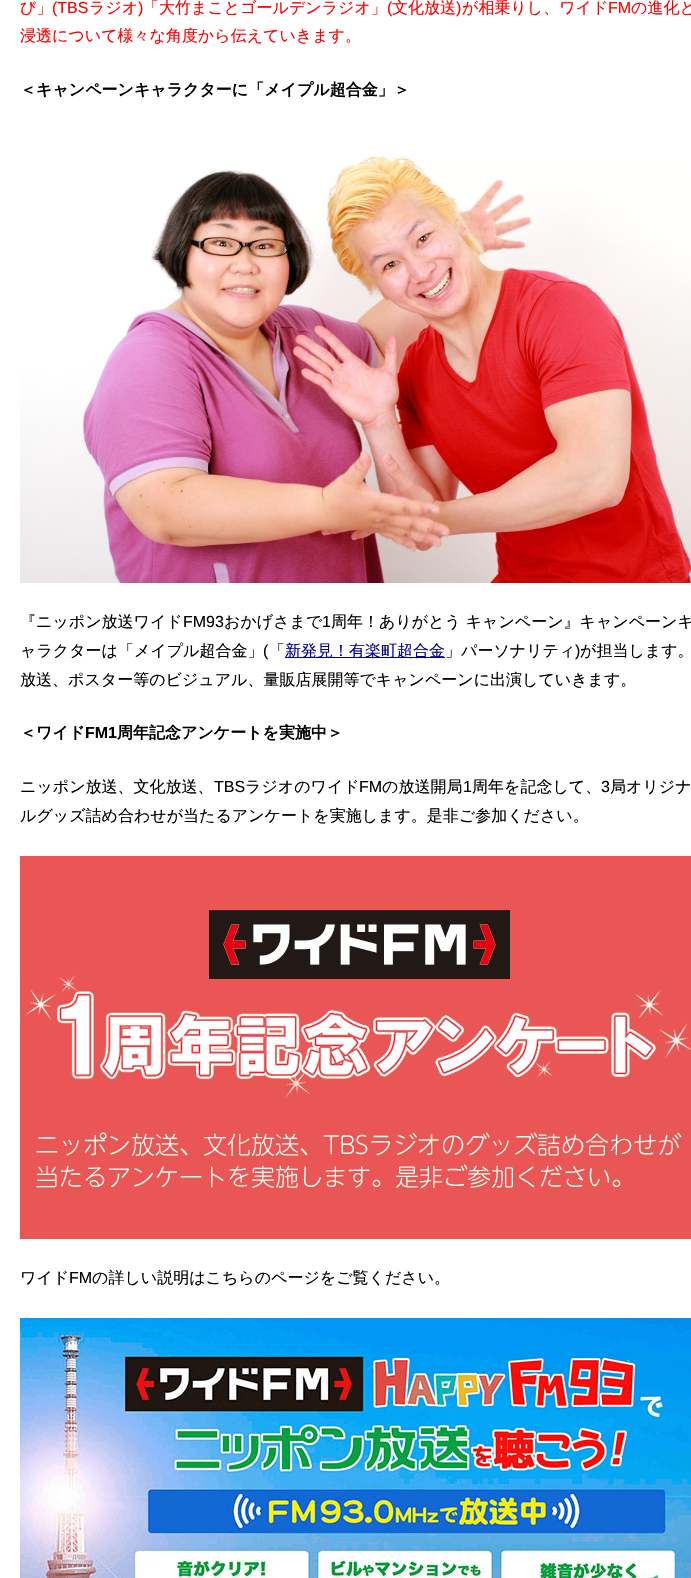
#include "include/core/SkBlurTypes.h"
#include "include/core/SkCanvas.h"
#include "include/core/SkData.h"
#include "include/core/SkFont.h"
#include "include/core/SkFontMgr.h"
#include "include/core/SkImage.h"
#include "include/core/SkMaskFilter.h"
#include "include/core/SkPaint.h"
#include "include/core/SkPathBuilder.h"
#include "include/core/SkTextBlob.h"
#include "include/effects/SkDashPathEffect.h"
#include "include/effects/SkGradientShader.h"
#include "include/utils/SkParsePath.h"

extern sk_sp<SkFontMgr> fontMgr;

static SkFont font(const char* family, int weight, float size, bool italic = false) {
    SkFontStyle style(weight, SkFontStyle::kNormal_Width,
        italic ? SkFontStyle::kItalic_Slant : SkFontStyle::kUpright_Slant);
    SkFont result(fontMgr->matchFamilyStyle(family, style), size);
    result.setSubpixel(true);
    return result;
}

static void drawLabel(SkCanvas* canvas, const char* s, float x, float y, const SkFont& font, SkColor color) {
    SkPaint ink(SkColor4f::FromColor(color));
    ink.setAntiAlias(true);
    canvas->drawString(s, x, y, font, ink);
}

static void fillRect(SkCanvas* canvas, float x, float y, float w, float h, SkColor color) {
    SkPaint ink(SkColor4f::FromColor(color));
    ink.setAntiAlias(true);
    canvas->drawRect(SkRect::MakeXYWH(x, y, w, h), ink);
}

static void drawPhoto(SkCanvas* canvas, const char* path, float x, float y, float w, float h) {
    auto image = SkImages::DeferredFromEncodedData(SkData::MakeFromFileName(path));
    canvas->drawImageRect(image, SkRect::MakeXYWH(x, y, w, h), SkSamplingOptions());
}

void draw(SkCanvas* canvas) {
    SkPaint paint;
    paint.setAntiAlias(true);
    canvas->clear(0xFFFFFFFF);
    SkFont font1 = font("WenQuanYi Zen Hei", 500, 16);
    drawLabel(canvas, "び」", 20, 13, font1, 0xFFFF0000);
    SkFont font2 = font("Liberation Sans", 400, 16);
    drawLabel(canvas, "(TBS", 52, 13, font2, 0xFFFF0000);
    drawLabel(canvas, "ラジオ", 89, 13, font1, 0xFFFF0000);
    drawLabel(canvas, ")", 138, 13, font2, 0xFFFF0000);
    drawLabel(canvas, "「大竹まことゴールデンラジオ」", 143, 13, font1, 0xFFFF0000);
    drawLabel(canvas, "(", 387, 13, font2, 0xFFFF0000);
    drawLabel(canvas, "文化放送", 392, 13, font1, 0xFFFF0000);
    drawLabel(canvas, ")", 456, 13, font2, 0xFFFF0000);
    drawLabel(canvas, "が相乗りし、ワイド", 462, 13, font1, 0xFFFF0000);
    drawLabel(canvas, "FM", 608, 13, font2, 0xFFFF0000);
    drawLabel(canvas, "の進化と", 631, 13, font1, 0xFFFF0000);
    drawLabel(canvas, "浸透について様々な角度から伝えていきます。", 20, 41, font1, 0xFFFF0000);
    SkFont font3 = font("WenQuanYi Zen Hei", 700, 16);
    drawLabel(canvas, "＜キャンペーンキャラクターに「メイプル超合金」＞", 20, 95, font3, 0xFF000000);
    drawPhoto(canvas, "assets/img1.png", 20, 155, 671, 428);
    drawLabel(canvas, "『ニッポン放送ワイド", 20, 627, font1, 0xFF000000);
    drawLabel(canvas, "FM93", 183, 627, font2, 0xFF000000);
    drawLabel(canvas, "おかげさまで", 224, 627, font1, 0xFF000000);
    drawLabel(canvas, "1", 322, 627, font2, 0xFF000000);
    drawLabel(canvas, "周年！ありがとう キャンペーン』キャンペーンキ", 331, 627, font1, 0xFF000000);
    drawLabel(canvas, "ャラクターは「メイプル超合金」", 20, 656, font1, 0xFF000000);
    drawLabel(canvas, "(", 263, 656, font2, 0xFF000000);
    drawLabel(canvas, "「", 269, 656, font1, 0xFF000000);
    fillRect(canvas, 285, 657, 160, 1, 0xFF000099);
    drawLabel(canvas, "新発見！有楽町超合金", 285, 656, font1, 0xFF000099);
    drawLabel(canvas, "」パーソナリティ", 445, 656, font1, 0xFF000000);
    drawLabel(canvas, ")", 575, 656, font2, 0xFF000000);
    drawLabel(canvas, "が担当します。", 580, 656, font1, 0xFF000000);
    drawLabel(canvas, "放送、ポスター等のビジュアル、量販店展開等でキャンペーンに出演していきます。", 20, 685, font1, 0xFF000000);
    drawLabel(canvas, "＜ワイド", 20, 738, font3, 0xFF000000);
    SkFont font4 = font("Liberation Sans", 700, 16);
    drawLabel(canvas, "FM1", 85, 738, font4, 0xFF000000);
    drawLabel(canvas, "周年記念アンケートを実施中＞", 117, 738, font3, 0xFF000000);
    drawLabel(canvas, "ニッポン放送、文化放送、", 20, 792, font1, 0xFF000000);
    drawLabel(canvas, "TBS", 214, 792, font2, 0xFF000000);
    drawLabel(canvas, "ラジオのワイド", 245, 792, font1, 0xFF000000);
    drawLabel(canvas, "FM", 359, 792, font2, 0xFF000000);
    drawLabel(canvas, "の放送開局", 382, 792, font1, 0xFF000000);
    drawLabel(canvas, "1", 463, 792, font2, 0xFF000000);
    drawLabel(canvas, "周年を記念して、", 472, 792, font1, 0xFF000000);
    drawLabel(canvas, "3", 601, 792, font2, 0xFF000000);
    drawLabel(canvas, "局オリジナ", 610, 792, font1, 0xFF000000);
    drawLabel(canvas, "ルグッズ詰め合わせが当たるアンケートを実施します。是非ご参加ください。", 20, 821, font1, 0xFF000000);
    drawPhoto(canvas, "assets/img2.png", 20, 856, 671, 383);
    drawLabel(canvas, "ワイド", 20, 1283, font1, 0xFF000000);
    drawLabel(canvas, "FM", 69, 1283, font2, 0xFF000000);
    drawLabel(canvas, "の詳しい説明はこちらのページをご覧ください。", 92, 1283, font1, 0xFF000000);
    drawPhoto(canvas, "assets/img3.png", 20, 1318, 671, 260);
}
